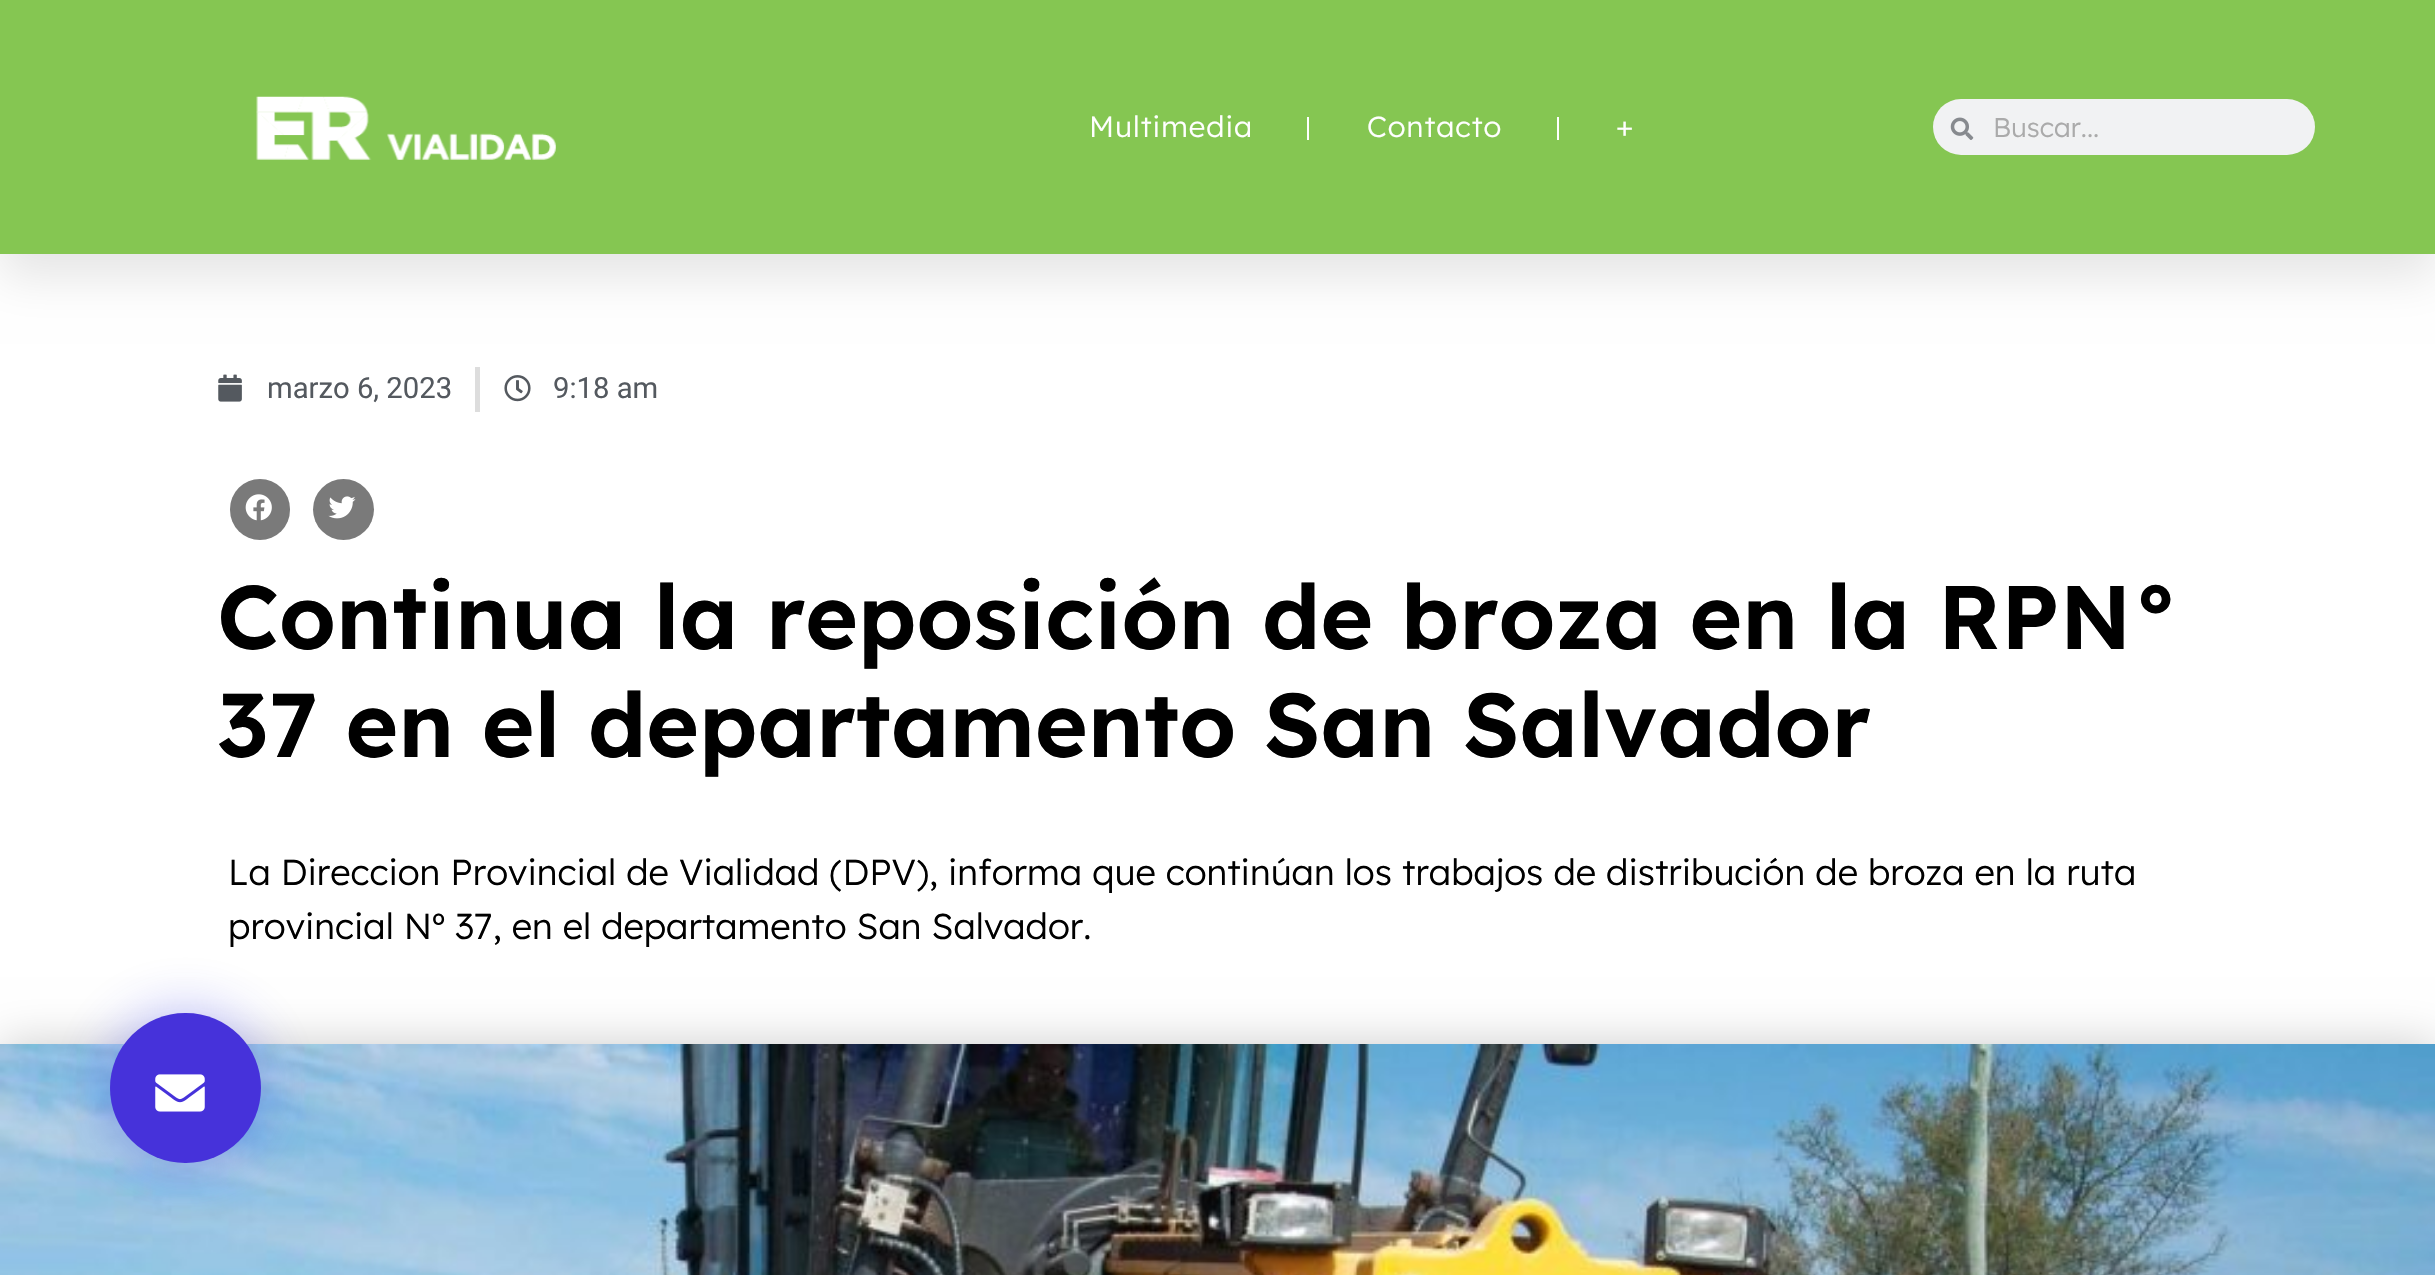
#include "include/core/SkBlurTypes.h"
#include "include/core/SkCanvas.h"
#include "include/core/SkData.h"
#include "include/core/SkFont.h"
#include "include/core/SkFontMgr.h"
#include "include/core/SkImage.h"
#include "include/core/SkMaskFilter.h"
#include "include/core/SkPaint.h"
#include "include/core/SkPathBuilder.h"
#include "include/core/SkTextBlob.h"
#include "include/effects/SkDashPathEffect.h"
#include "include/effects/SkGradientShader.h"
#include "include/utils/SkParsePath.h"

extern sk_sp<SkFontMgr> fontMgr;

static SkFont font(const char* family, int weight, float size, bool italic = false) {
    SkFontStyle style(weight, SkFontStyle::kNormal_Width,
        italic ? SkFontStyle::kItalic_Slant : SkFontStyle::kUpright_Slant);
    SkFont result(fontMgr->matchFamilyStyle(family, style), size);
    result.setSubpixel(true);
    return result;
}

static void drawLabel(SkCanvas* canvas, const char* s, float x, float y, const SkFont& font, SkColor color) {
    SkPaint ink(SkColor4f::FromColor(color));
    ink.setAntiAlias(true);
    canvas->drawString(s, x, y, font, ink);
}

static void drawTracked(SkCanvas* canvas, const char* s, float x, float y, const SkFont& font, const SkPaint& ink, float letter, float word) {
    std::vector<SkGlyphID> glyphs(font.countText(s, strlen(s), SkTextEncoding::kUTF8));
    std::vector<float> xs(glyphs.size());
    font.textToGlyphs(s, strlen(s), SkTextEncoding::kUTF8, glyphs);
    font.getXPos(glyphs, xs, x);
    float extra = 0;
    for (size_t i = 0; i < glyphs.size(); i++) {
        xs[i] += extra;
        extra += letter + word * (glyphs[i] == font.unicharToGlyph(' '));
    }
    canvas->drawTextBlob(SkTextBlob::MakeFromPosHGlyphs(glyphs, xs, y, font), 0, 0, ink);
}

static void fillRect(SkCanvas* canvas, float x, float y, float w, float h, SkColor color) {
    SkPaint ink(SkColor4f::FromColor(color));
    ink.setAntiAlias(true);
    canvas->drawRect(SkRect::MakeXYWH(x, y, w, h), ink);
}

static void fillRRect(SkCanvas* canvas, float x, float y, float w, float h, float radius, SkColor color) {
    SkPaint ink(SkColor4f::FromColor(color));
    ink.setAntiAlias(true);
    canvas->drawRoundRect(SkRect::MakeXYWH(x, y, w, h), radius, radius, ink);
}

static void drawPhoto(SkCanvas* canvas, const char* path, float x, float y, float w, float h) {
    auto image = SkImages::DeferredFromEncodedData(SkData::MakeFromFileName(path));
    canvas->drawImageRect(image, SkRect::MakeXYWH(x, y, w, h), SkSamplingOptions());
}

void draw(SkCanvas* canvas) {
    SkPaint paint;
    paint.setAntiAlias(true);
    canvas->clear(0xFFFFFFFF);
    paint.setColor(0x1A000000);
    paint.setMaskFilter(SkMaskFilter::MakeBlur(kNormal_SkBlurStyle, 22.5f));
    canvas->drawRect(SkRect::MakeXYWH(0, 23, 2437, 254), paint);
    paint.setMaskFilter(nullptr);
    fillRect(canvas, 0, 0, 2435, 254, 0xFF85C652);
    drawPhoto(canvas, "assets/img1.png", 256, 96, 300, 64);
    SkFont font1 = font("Lexend", 300, 29.25f);
    paint.setColor(0xFFFFFFFF);
    drawTracked(canvas, "Multimedia", 1089, 137, font1, paint, 1, 0);
    fillRect(canvas, 1307, 117, 2, 23, 0xFFFFFFFF);
    drawTracked(canvas, "Contacto", 1367, 137, font1, paint, 1, 0);
    fillRect(canvas, 1557, 117, 2, 23, 0xFFFFFFFF);
    drawTracked(canvas, "+", 1616, 137, font1, paint, 1, 0);
    fillRRect(canvas, 1933, 99, 382, 56, 28, 0xFFF1F2F3);
    drawPhoto(canvas, "assets/img2.png", 1950, 117, 24, 23);
    SkFont font2 = font("Lexend", 300, 27);
    drawLabel(canvas, "Buscar...", 1993, 137, font2, 0xFFAAAAAA);
    drawPhoto(canvas, "assets/img3.png", 218, 374, 24, 28);
    SkFont font3 = font("Roboto", 400, 29.25f);
    drawLabel(canvas, "marzo 6, 2023", 267, 398, font3, 0xFF54595F);
    fillRect(canvas, 475, 367, 5, 45, 0xFFDDDDDD);
    drawPhoto(canvas, "assets/img4.png", 504, 375, 27, 27);
    drawLabel(canvas, "9:18 am", 553, 398, font3, 0xFF54595F);
    fillRRect(canvas, 230, 479, 60, 61, 30, 0xFF7A7A7A);
    drawPhoto(canvas, "assets/img5.png", 245, 494, 27, 27);
    paint.setColor(0xFF7A7A7A);
    canvas->drawCircle(343.5f, 509.5f, 30.5f, paint);
    drawPhoto(canvas, "assets/img6.png", 328, 496, 28, 23);
    SkFont font4 = font("Lexend", 600, 90);
    drawLabel(canvas, "Continua la reposición de broza en la RPN°", 217, 649, font4, 0xFF000000);
    drawLabel(canvas, "37 en el departamento San Salvador", 217, 757, font4, 0xFF000000);
    paint.setColor(0x33000000);
    paint.setMaskFilter(SkMaskFilter::MakeBlur(kNormal_SkBlurStyle, 22.5f));
    canvas->drawRect(SkRect::MakeXYWH(0, 1044, 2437, 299), paint);
    paint.setMaskFilter(nullptr);
    drawPhoto(canvas, "assets/img8.png", 0, 1044, 2435, 231);
    paint.setColor(0x593538F0);
    paint.setMaskFilter(SkMaskFilter::MakeBlur(kNormal_SkBlurStyle, 28));
    canvas->drawRoundRect(SkRect::MakeXYWH(110, 1013, 151, 150), 75, 75, paint);
    paint.setMaskFilter(nullptr);
    fillRRect(canvas, 110, 1013, 151, 150, 75, 0xFF4632DA);
    drawPhoto(canvas, "assets/img7.png", 155, 1074, 50, 38);
    SkFont font5 = font("Lexend", 300, 36);
    drawLabel(canvas, "La Direccion Provincial de Vialidad (DPV), informa que continúan los trabajos de distribución de broza en la ruta", 228, 885, font5, 0xFF000000);
    drawLabel(canvas, "provincial Nº 37, en el departamento San Salvador.", 228, 939, font5, 0xFF000000);
}
